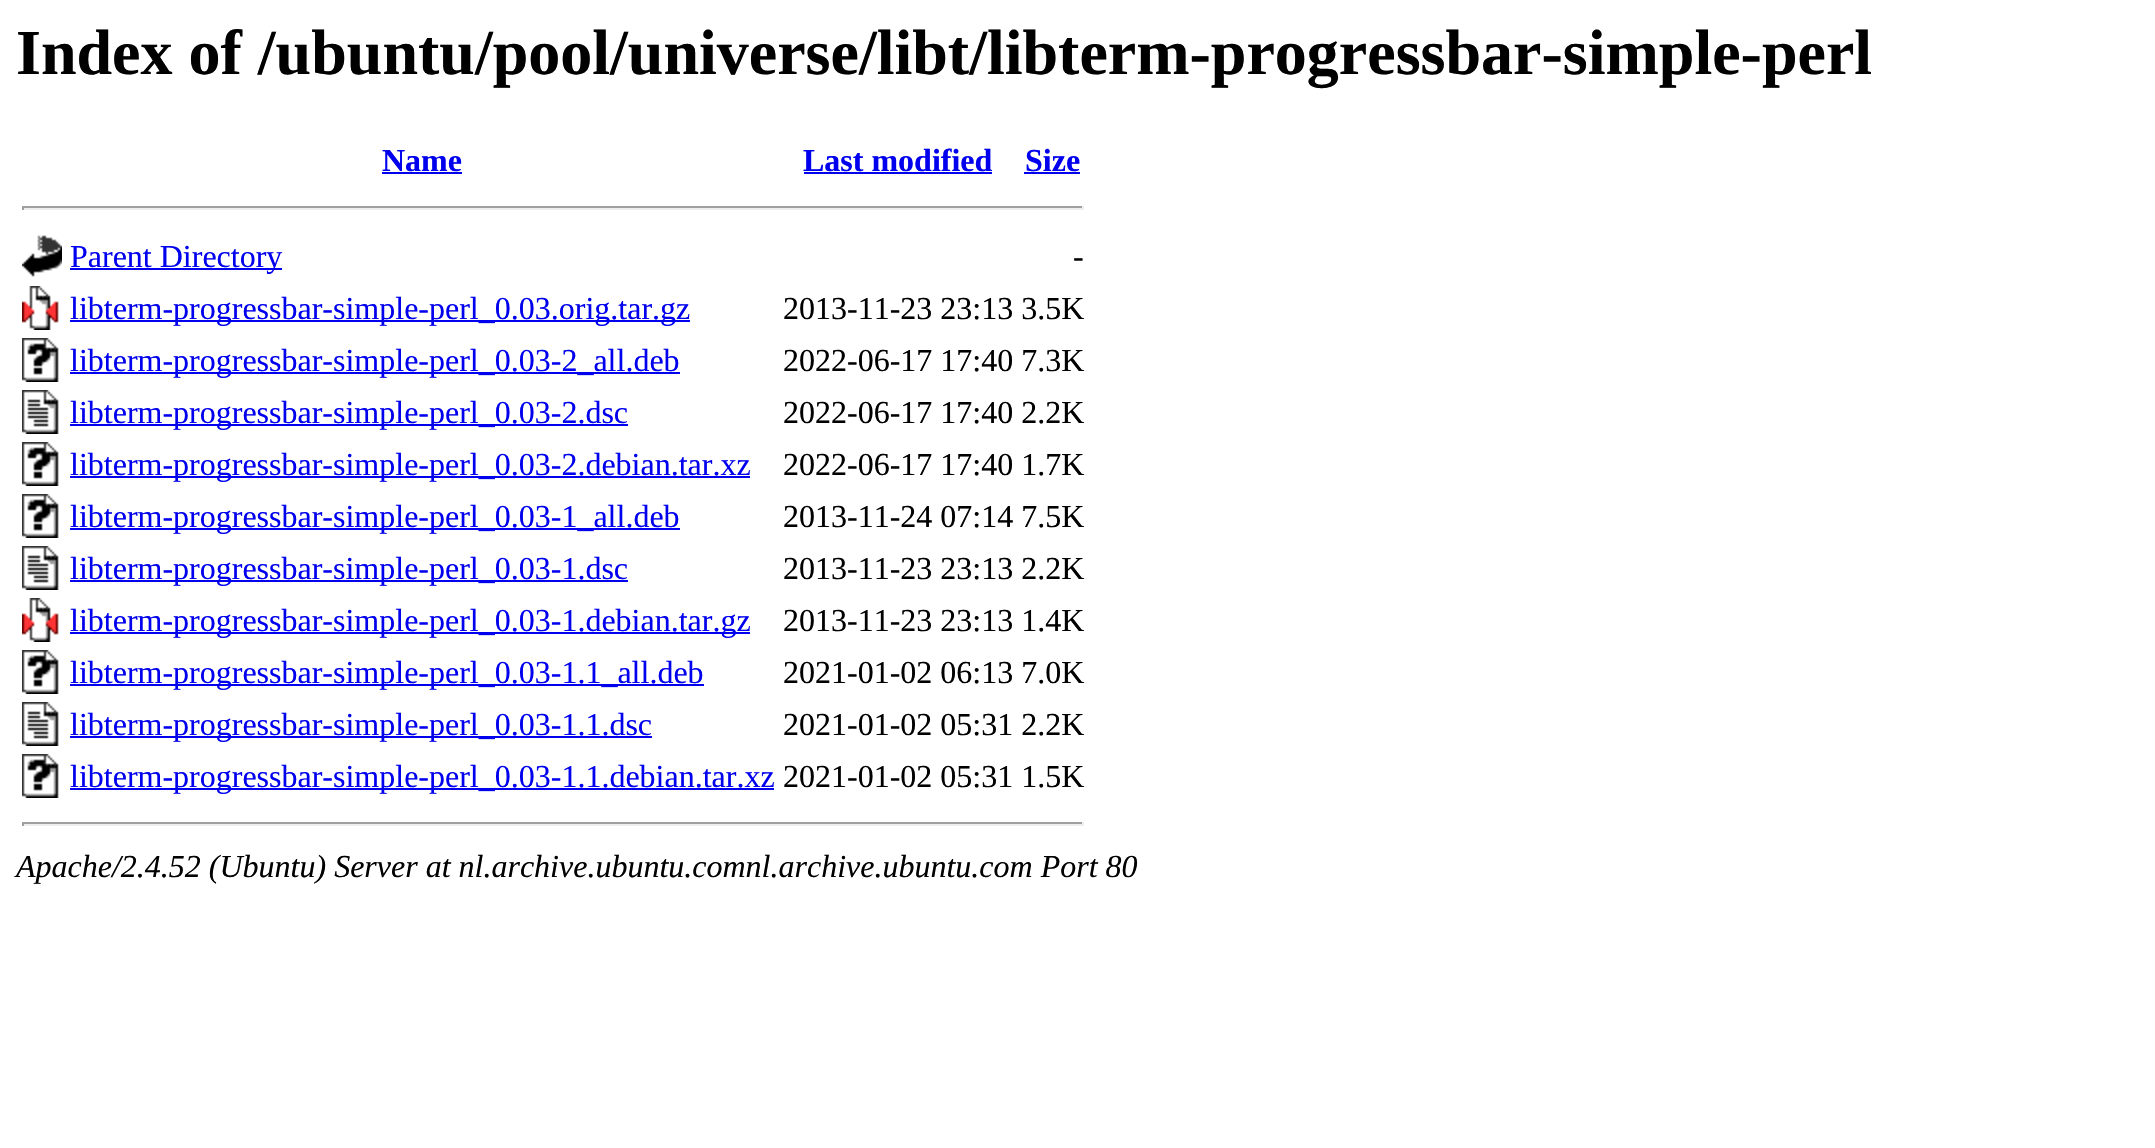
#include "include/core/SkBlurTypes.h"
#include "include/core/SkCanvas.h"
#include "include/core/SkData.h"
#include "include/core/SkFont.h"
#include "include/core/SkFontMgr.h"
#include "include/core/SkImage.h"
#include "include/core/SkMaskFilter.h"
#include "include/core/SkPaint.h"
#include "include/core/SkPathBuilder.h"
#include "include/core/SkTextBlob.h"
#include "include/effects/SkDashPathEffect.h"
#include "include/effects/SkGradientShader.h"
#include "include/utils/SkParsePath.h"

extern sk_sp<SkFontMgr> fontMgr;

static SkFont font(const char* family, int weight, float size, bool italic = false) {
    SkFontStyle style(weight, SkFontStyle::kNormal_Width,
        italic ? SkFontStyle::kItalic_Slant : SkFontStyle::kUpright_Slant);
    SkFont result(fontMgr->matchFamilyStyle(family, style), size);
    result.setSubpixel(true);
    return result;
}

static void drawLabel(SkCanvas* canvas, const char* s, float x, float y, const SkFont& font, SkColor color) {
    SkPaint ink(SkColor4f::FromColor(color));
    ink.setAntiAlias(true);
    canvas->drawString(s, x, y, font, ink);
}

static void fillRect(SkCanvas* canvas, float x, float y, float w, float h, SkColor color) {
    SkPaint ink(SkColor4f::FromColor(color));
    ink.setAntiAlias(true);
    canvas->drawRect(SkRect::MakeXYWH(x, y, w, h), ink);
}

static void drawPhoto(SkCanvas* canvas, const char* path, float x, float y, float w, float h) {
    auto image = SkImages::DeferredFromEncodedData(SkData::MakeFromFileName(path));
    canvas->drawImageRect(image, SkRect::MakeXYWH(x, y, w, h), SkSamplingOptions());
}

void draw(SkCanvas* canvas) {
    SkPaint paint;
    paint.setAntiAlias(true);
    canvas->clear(0xFFFFFFFF);
    SkFont font1 = font("Liberation Serif", 700, 64);
    drawLabel(canvas, "Index of /ubuntu/pool/universe/libt/libterm-progressbar-simple-perl", 16, 74, font1, 0xFF000000);
    SkFont font2 = font("Liberation Serif", 700, 32);
    drawLabel(canvas, "Name", 382, 171, font2, 0xFF0000EE);
    fillRect(canvas, 382, 172, 80, 2, 0xFF0000EE);
    drawLabel(canvas, "Last modified", 803, 171, font2, 0xFF0000EE);
    fillRect(canvas, 804, 172, 188, 2, 0xFF0000EE);
    drawLabel(canvas, "Size", 1025, 171, font2, 0xFF0000EE);
    fillRect(canvas, 1024, 172, 56, 2, 0xFF0000EE);
    fillRect(canvas, 22, 206, 1062, 2, 0xFF9F9F9F);
    fillRect(canvas, 1082, 206, 2, 4, 0xFFEEEEEE);
    fillRect(canvas, 22, 208, 1062, 2, 0xFFEEEEEE);
    fillRect(canvas, 22, 206, 2, 4, 0xFF9F9F9F);
    drawPhoto(canvas, "assets/img1.png", 22, 235, 40, 42);
    fillRect(canvas, 70, 268, 212, 2, 0xFF0000EE);
    SkFont font3 = font("Liberation Serif", 400, 32);
    drawLabel(canvas, "Parent Directory", 70, 267, font3, 0xFF0000EE);
    drawLabel(canvas, "-", 1073, 267, font3, 0xFF000000);
    drawPhoto(canvas, "assets/img2.png", 22, 286, 37, 44);
    fillRect(canvas, 70, 320, 620, 2, 0xFF0000EE);
    drawLabel(canvas, "libterm-progressbar-simple-perl_0.03.orig.tar.gz", 70, 319, font3, 0xFF0000EE);
    drawLabel(canvas, "2013-11-23 23:13 3.5K", 783, 319, font3, 0xFF000000);
    drawPhoto(canvas, "assets/img3.png", 22, 338, 37, 44);
    fillRect(canvas, 70, 372, 610, 2, 0xFF0000EE);
    drawLabel(canvas, "libterm-progressbar-simple-perl_0.03-2_all.deb", 70, 371, font3, 0xFF0000EE);
    drawLabel(canvas, "2022-06-17 17:40 7.3K", 783, 371, font3, 0xFF000000);
    drawPhoto(canvas, "assets/img4.png", 22, 390, 37, 44);
    fillRect(canvas, 70, 424, 558, 2, 0xFF0000EE);
    drawLabel(canvas, "libterm-progressbar-simple-perl_0.03-2.dsc", 70, 423, font3, 0xFF0000EE);
    drawLabel(canvas, "2022-06-17 17:40 2.2K", 783, 423, font3, 0xFF000000);
    drawPhoto(canvas, "assets/img3.png", 22, 442, 37, 44);
    fillRect(canvas, 70, 476, 680, 2, 0xFF0000EE);
    drawLabel(canvas, "libterm-progressbar-simple-perl_0.03-2.debian.tar.xz", 70, 475, font3, 0xFF0000EE);
    drawLabel(canvas, "2022-06-17 17:40 1.7K", 783, 475, font3, 0xFF000000);
    drawPhoto(canvas, "assets/img3.png", 22, 494, 37, 44);
    fillRect(canvas, 70, 528, 610, 2, 0xFF0000EE);
    drawLabel(canvas, "libterm-progressbar-simple-perl_0.03-1_all.deb", 70, 527, font3, 0xFF0000EE);
    drawLabel(canvas, "2013-11-24 07:14 7.5K", 783, 527, font3, 0xFF000000);
    drawPhoto(canvas, "assets/img4.png", 22, 546, 37, 44);
    fillRect(canvas, 70, 580, 558, 2, 0xFF0000EE);
    drawLabel(canvas, "libterm-progressbar-simple-perl_0.03-1.dsc", 70, 579, font3, 0xFF0000EE);
    drawLabel(canvas, "2013-11-23 23:13 2.2K", 783, 579, font3, 0xFF000000);
    drawPhoto(canvas, "assets/img2.png", 22, 598, 37, 44);
    fillRect(canvas, 70, 632, 680, 2, 0xFF0000EE);
    drawLabel(canvas, "libterm-progressbar-simple-perl_0.03-1.debian.tar.gz", 70, 631, font3, 0xFF0000EE);
    drawLabel(canvas, "2013-11-23 23:13 1.4K", 783, 631, font3, 0xFF000000);
    drawPhoto(canvas, "assets/img3.png", 22, 650, 37, 44);
    fillRect(canvas, 70, 684, 634, 2, 0xFF0000EE);
    drawLabel(canvas, "libterm-progressbar-simple-perl_0.03-1.1_all.deb", 70, 683, font3, 0xFF0000EE);
    drawLabel(canvas, "2021-01-02 06:13 7.0K", 783, 683, font3, 0xFF000000);
    drawPhoto(canvas, "assets/img4.png", 22, 702, 37, 44);
    fillRect(canvas, 70, 736, 582, 2, 0xFF0000EE);
    drawLabel(canvas, "libterm-progressbar-simple-perl_0.03-1.1.dsc", 70, 735, font3, 0xFF0000EE);
    drawLabel(canvas, "2021-01-02 05:31 2.2K", 783, 735, font3, 0xFF000000);
    drawPhoto(canvas, "assets/img3.png", 22, 754, 37, 44);
    fillRect(canvas, 70, 788, 704, 2, 0xFF0000EE);
    drawLabel(canvas, "libterm-progressbar-simple-perl_0.03-1.1.debian.tar.xz", 70, 787, font3, 0xFF0000EE);
    drawLabel(canvas, "2021-01-02 05:31 1.5K", 783, 787, font3, 0xFF000000);
    fillRect(canvas, 22, 822, 1062, 2, 0xFF9F9F9F);
    fillRect(canvas, 1082, 822, 2, 4, 0xFFEEEEEE);
    fillRect(canvas, 22, 824, 1062, 2, 0xFFEEEEEE);
    fillRect(canvas, 22, 822, 2, 4, 0xFF9F9F9F);
    SkFont font4 = font("Liberation Serif", 400, 32, true);
    drawLabel(canvas, "Apache/2.4.52 (Ubuntu) Server at nl.archive.ubuntu.comnl.archive.ubuntu.com Port 80", 16, 877, font4, 0xFF000000);
}
